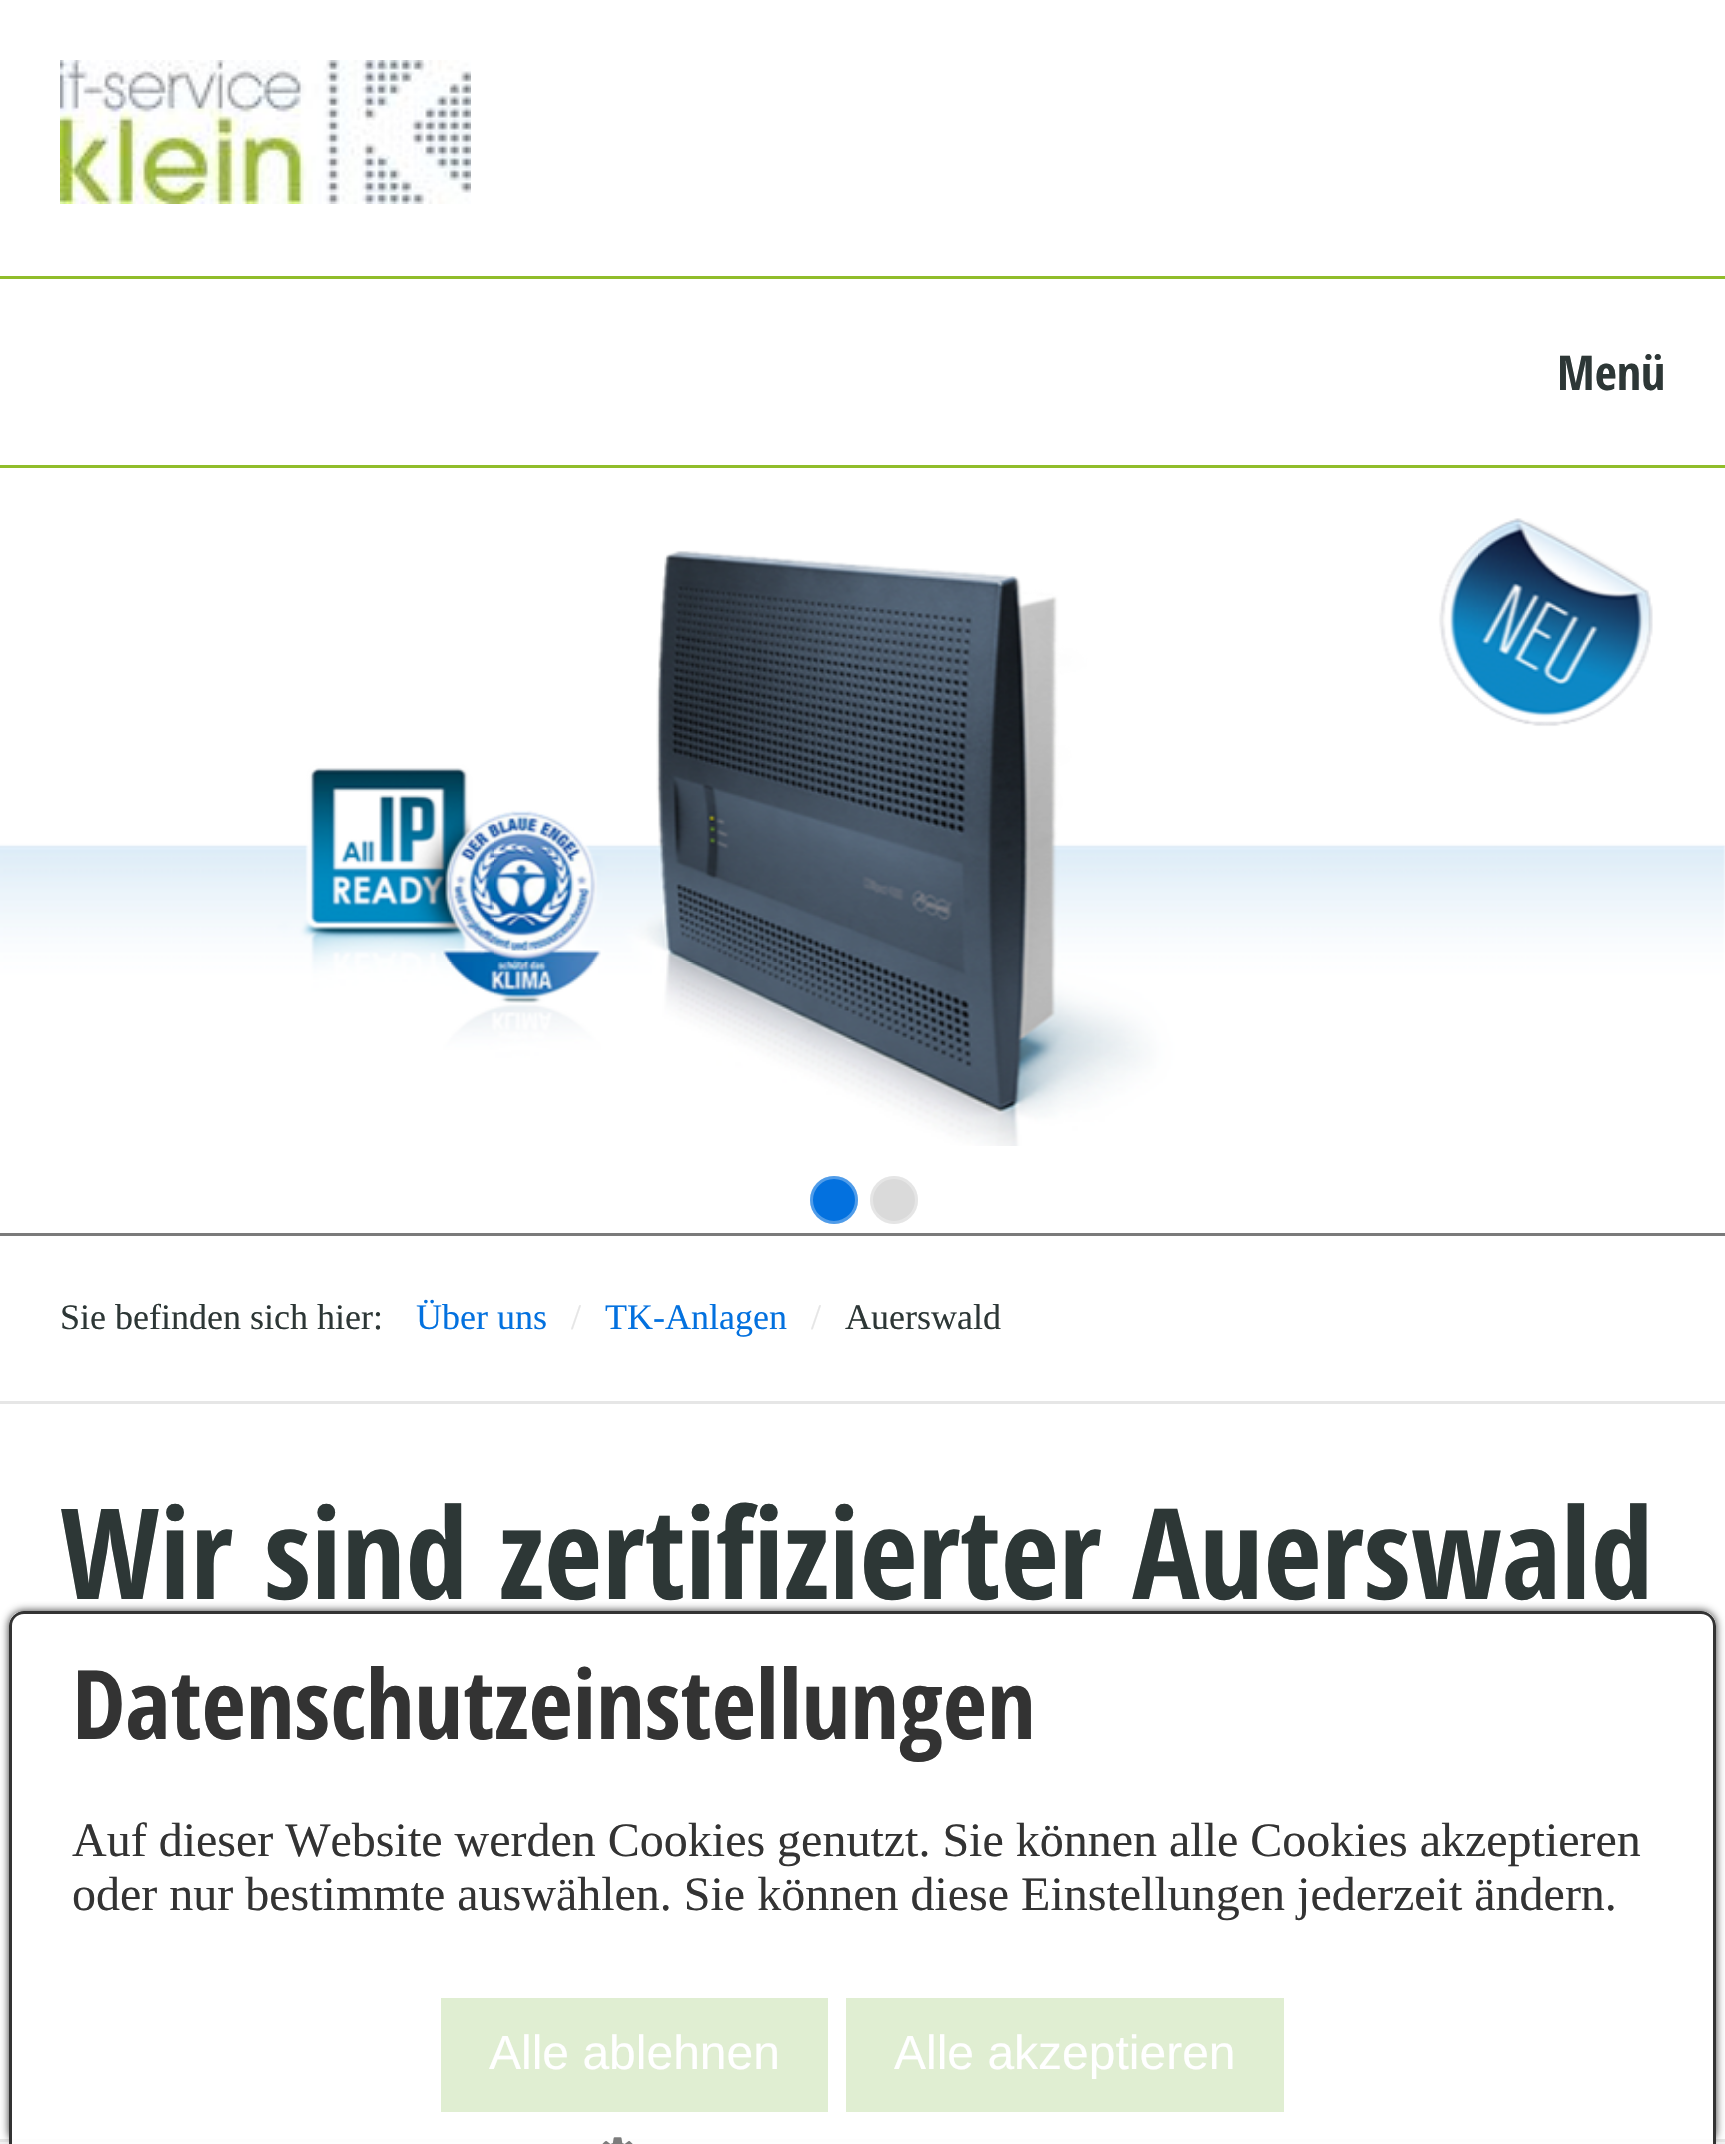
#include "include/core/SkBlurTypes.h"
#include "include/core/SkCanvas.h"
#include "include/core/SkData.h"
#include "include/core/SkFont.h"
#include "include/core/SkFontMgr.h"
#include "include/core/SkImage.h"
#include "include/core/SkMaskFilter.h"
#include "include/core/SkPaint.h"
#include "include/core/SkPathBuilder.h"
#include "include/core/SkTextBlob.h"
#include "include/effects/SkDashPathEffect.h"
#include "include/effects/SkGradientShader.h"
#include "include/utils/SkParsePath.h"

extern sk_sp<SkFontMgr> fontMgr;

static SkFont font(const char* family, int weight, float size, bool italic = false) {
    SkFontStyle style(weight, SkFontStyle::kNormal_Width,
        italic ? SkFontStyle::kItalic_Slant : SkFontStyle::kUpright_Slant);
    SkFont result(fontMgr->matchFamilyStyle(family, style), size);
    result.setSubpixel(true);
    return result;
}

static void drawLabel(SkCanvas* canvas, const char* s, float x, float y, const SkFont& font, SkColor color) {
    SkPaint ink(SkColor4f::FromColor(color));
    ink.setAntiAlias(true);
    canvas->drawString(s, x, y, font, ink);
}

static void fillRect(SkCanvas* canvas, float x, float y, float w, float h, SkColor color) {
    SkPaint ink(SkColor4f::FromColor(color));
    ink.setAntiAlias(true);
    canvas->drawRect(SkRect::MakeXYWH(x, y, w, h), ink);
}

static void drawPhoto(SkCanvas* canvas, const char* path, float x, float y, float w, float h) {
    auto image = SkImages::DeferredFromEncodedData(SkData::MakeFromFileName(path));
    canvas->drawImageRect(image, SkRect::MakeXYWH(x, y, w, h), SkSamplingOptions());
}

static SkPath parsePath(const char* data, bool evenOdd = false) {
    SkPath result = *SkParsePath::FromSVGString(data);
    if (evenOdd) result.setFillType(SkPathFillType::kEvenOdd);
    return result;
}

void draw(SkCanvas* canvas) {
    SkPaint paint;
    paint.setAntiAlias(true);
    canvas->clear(0xFFFFFFFF);
    fillRect(canvas, 0, 276, 1725, 3, 0xFF90BD2A);
    drawPhoto(canvas, "assets/img1.png", 60, 60, 411, 144);
    fillRect(canvas, 0, 465, 1725, 3, 0xFF90BD2A);
    SkFont font1 = font("Open Sans Condensed", 700, 48);
    drawLabel(canvas, "Menü", 1557, 390, font1, 0xFF2D3736);
    fillRect(canvas, 0, 1233, 1725, 3, 0xFF7A7A7A);
    drawPhoto(canvas, "assets/img2.png", 0, 518, 1725, 628);
    paint.setColor(0xFF0371DF);
    canvas->drawCircle(834, 1200, 24, paint);
    paint.setStroke(true);
    paint.setStrokeWidth(3);
    paint.setColor(0x4DFFFFFF);
    canvas->drawCircle(834, 1200, 22.5f, paint);
    paint.setStroke(false);
    paint.setColor(0xFFDADADA);
    canvas->drawCircle(894, 1200, 24, paint);
    paint.setStroke(true);
    paint.setColor(0x4DFFFFFF);
    canvas->drawCircle(894, 1200, 22.5f, paint);
    fillRect(canvas, 0, 1401, 1725, 3, 0xFFE6E6E6);
    SkFont font2 = font("Liberation Serif", 400, 36);
    drawLabel(canvas, "Sie befinden sich hier:", 60, 1329, font2, 0xFF2D3736);
    drawLabel(canvas, "Über uns", 416, 1329, font2, 0xFF0371DF);
    drawLabel(canvas, "/", 571, 1329, font2, 0xFFE6E6E6);
    drawLabel(canvas, "TK-Anlagen", 605, 1329, font2, 0xFF0371DF);
    drawLabel(canvas, "/", 811, 1329, font2, 0xFFE6E6E6);
    drawLabel(canvas, "Auerswald", 845, 1329, font2, 0xFF2D3736);
    fillRect(canvas, 0, 2139, 1725, 3, 0xFFE6E6E6);
    SkFont font3 = font("Open Sans Condensed", 700, 126);
    drawLabel(canvas, "Wir sind zertifizierter Auerswald", 60, 1599, font3, 0xFF2D3736);
    fillRect(canvas, 0, 2142, 1725, 2, 0xFFF2F2F2);
    canvas->save();
    canvas->clipPath(parsePath("M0 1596H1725V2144H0ZM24 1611H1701C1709.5 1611 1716 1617.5 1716 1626V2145H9V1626C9 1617.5 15.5 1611 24 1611Z", true), true);
    paint.setStroke(false);
    paint.setColor(0xCC000000);
    paint.setMaskFilter(SkMaskFilter::MakeBlur(kNormal_SkBlurStyle, 4.5f));
    canvas->drawRoundRect(SkRect::MakeXYWH(9, 1611, 1707, 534), 15, 15, paint);
    paint.setMaskFilter(nullptr);
    canvas->restore();
    paint.setColor(0xE6FFFFFF);
    canvas->drawPath(parsePath("M24 1611H1701C1709.5 1611 1716 1617.5 1716 1626V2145H9V1626C9 1617.5 15.5 1611 24 1611Z"), paint);
    paint.setColor(0xFF333333);
    canvas->drawPath(parsePath("M24 1611H1701C1709 1611 1716 1618 1716 1626V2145H9V1626C9 1618 16 1611 24 1611ZM24 1614H1701C1708 1614 1713 1619 1713 1626V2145H12V1626C12 1619 17 1614 24 1614Z", true), paint);
    SkFont font4 = font("Open Sans Condensed", 700, 96);
    drawLabel(canvas, "Datenschutzeinstellungen", 72, 1739, font4, 0xFF333333);
    SkFont font5 = font("Liberation Serif", 400, 48);
    drawLabel(canvas, "Auf dieser Website werden Cookies genutzt. Sie können alle Cookies akzeptieren", 72, 1856, font5, 0xFF333333);
    drawLabel(canvas, "oder nur bestimmte auswählen. Sie können diese Einstellungen jederzeit ändern.", 72, 1910, font5, 0xFF333333);
    fillRect(canvas, 441, 1998, 387, 114, 0xFFE0EED2);
    SkFont font6 = font("Liberation Sans", 400, 48);
    drawLabel(canvas, "Alle ablehnen", 489, 2069, font6, 0xFFFFFFFF);
    fillRect(canvas, 846, 1998, 438, 114, 0xFFE0EED2);
    drawLabel(canvas, "Alle akzeptieren", 894, 2069, font6, 0xFFFFFFFF);
    drawPhoto(canvas, "assets/img3.png", 602, 2137, 31, 7);
}
